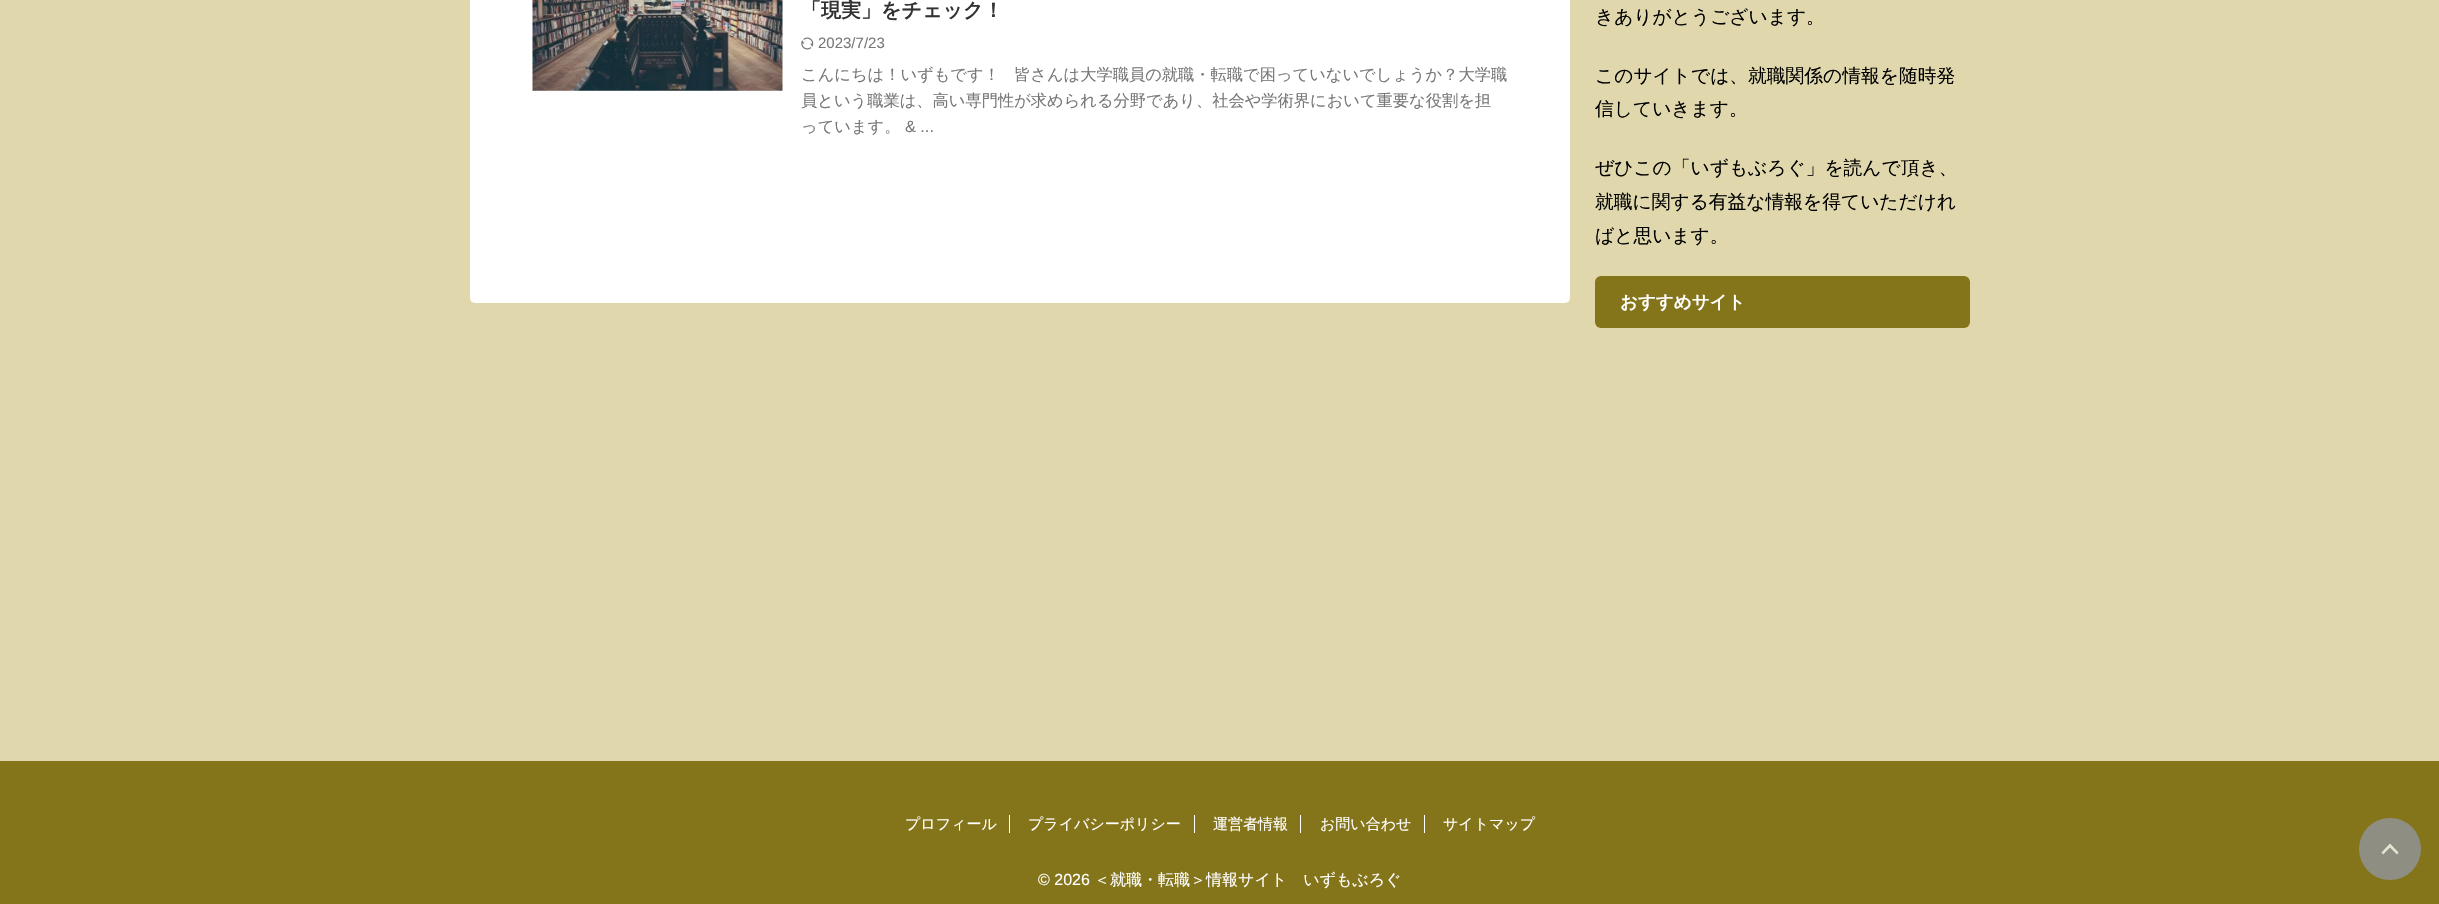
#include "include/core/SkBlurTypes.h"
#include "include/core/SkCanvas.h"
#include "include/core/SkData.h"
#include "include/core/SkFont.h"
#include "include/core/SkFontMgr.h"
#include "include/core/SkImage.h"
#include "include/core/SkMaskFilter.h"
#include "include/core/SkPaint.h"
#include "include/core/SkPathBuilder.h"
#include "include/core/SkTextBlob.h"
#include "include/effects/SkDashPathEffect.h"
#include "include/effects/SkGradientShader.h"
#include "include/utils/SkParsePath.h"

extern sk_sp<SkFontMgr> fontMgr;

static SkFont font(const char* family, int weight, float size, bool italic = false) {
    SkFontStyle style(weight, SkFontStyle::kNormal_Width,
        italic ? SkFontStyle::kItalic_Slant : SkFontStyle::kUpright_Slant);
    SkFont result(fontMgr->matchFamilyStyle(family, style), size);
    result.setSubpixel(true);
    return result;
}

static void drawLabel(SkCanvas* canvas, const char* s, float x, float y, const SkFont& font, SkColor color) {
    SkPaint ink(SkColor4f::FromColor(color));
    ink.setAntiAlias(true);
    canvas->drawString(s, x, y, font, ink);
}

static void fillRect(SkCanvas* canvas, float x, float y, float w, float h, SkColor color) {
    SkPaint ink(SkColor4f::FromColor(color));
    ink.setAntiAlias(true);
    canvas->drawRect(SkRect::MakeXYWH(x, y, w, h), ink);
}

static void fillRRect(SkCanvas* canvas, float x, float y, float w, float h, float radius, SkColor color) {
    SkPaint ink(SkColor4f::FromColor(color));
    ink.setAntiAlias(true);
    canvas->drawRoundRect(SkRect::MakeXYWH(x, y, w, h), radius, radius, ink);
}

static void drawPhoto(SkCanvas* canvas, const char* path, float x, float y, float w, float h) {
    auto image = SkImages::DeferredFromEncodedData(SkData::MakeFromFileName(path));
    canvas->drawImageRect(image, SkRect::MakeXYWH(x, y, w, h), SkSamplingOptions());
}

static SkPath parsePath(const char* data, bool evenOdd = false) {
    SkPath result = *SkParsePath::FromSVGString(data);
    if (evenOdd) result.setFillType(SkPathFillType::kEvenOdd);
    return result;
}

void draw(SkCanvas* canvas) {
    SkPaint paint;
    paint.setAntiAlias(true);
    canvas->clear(0xFFE0D8AC);
    fillRRect(canvas, 470, -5, 1100, 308, 5, 0xFFFFFFFF);
    drawPhoto(canvas, "assets/img1.png", 532, 0, 251, 91);
    SkFont font1 = font("WenQuanYi Zen Hei", 700, 20);
    drawLabel(canvas, "「現実」をチェック！", 801, 17, font1, 0xFF333333);
    drawPhoto(canvas, "assets/img2.png", 801, 37, 13, 13);
    SkFont font2 = font("Liberation Sans", 400, 15);
    drawLabel(canvas, "2023/7/23", 818, 48, font2, 0xFF777777);
    SkFont font3 = font("WenQuanYi Zen Hei", 500, 16.25f);
    drawLabel(canvas, "こんにちは！いずもです！", 801, 80, font3, 0xFF777777);
    drawLabel(canvas, "皆さんは大学職員の就職・転職で困っていないでしょうか？大学職", 1014, 80, font3, 0xFF777777);
    drawLabel(canvas, "員という職業は、高い専門性が求められる分野であり、社会や学術界において重要な役割を担", 801, 106, font3, 0xFF777777);
    drawLabel(canvas, "っています。", 801, 132, font3, 0xFF777777);
    SkFont font4 = font("Liberation Sans", 400, 16.25f);
    drawLabel(canvas, "& ...", 905, 132, font4, 0xFF777777);
    SkFont font5 = font("WenQuanYi Zen Hei", 500, 18.75f);
    drawLabel(canvas, "きありがとうございます。", 1595, 23, font5, 0xFF000000);
    drawLabel(canvas, "このサイトでは、就職関係の情報を随時発", 1595, 82, font5, 0xFF000000);
    drawLabel(canvas, "信していきます。", 1595, 115, font5, 0xFF000000);
    drawLabel(canvas, "ぜひこの「いずもぶろぐ」を読んで頂き、", 1595, 174, font5, 0xFF000000);
    drawLabel(canvas, "就職に関する有益な情報を得ていただけれ", 1595, 208, font5, 0xFF000000);
    drawLabel(canvas, "ばと思います。", 1595, 242, font5, 0xFF000000);
    fillRRect(canvas, 1595, 276, 375, 52, 6, 0xFF84741A);
    SkFont font6 = font("WenQuanYi Zen Hei", 700, 17.5f);
    drawLabel(canvas, "おすすめサイト", 1620, 308, font6, 0xFFFFFFFF);
    fillRect(canvas, 0, 761, 2439, 143, 0xFF84741A);
    SkFont font7 = font("WenQuanYi Zen Hei", 500, 15);
    drawLabel(canvas, "プロフィール", 905, 829, font7, 0xFFFFFFFF);
    fillRect(canvas, 1009, 815, 1, 18, 0xFFFFFFFF);
    drawLabel(canvas, "プライバシーポリシー", 1028, 829, font7, 0xFFFFFFFF);
    fillRect(canvas, 1194, 815, 1, 18, 0xFFFFFFFF);
    drawLabel(canvas, "運営者情報", 1213, 829, font7, 0xFFFFFFFF);
    fillRect(canvas, 1300, 815, 1, 18, 0xFFFFFFFF);
    drawLabel(canvas, "お問い合わせ", 1320, 829, font7, 0xFFFFFFFF);
    fillRect(canvas, 1424, 815, 1, 18, 0xFFFFFFFF);
    drawLabel(canvas, "サイトマップ", 1443, 829, font7, 0xFFFFFFFF);
    SkFont font8 = font("Liberation Sans", 400, 16);
    drawLabel(canvas, "© 2026", 1038, 885, font8, 0xFFFFFFFF);
    SkFont font9 = font("WenQuanYi Zen Hei", 500, 16);
    drawLabel(canvas, "＜就職・転職＞情報サイト　いずもぶろぐ", 1094, 885, font9, 0xFFFFFFFF);
    paint.setColor(0xFF8F8E82);
    canvas->drawCircle(2390, 849, 31, paint);
    paint.setColor(0xFFE6E3D1);
    canvas->drawPath(parsePath("M2390 847.5L2383 854.5L2381.5 852.5L2390 843.5L2398.5 852.5L2397 854.5Z"), paint);
}
